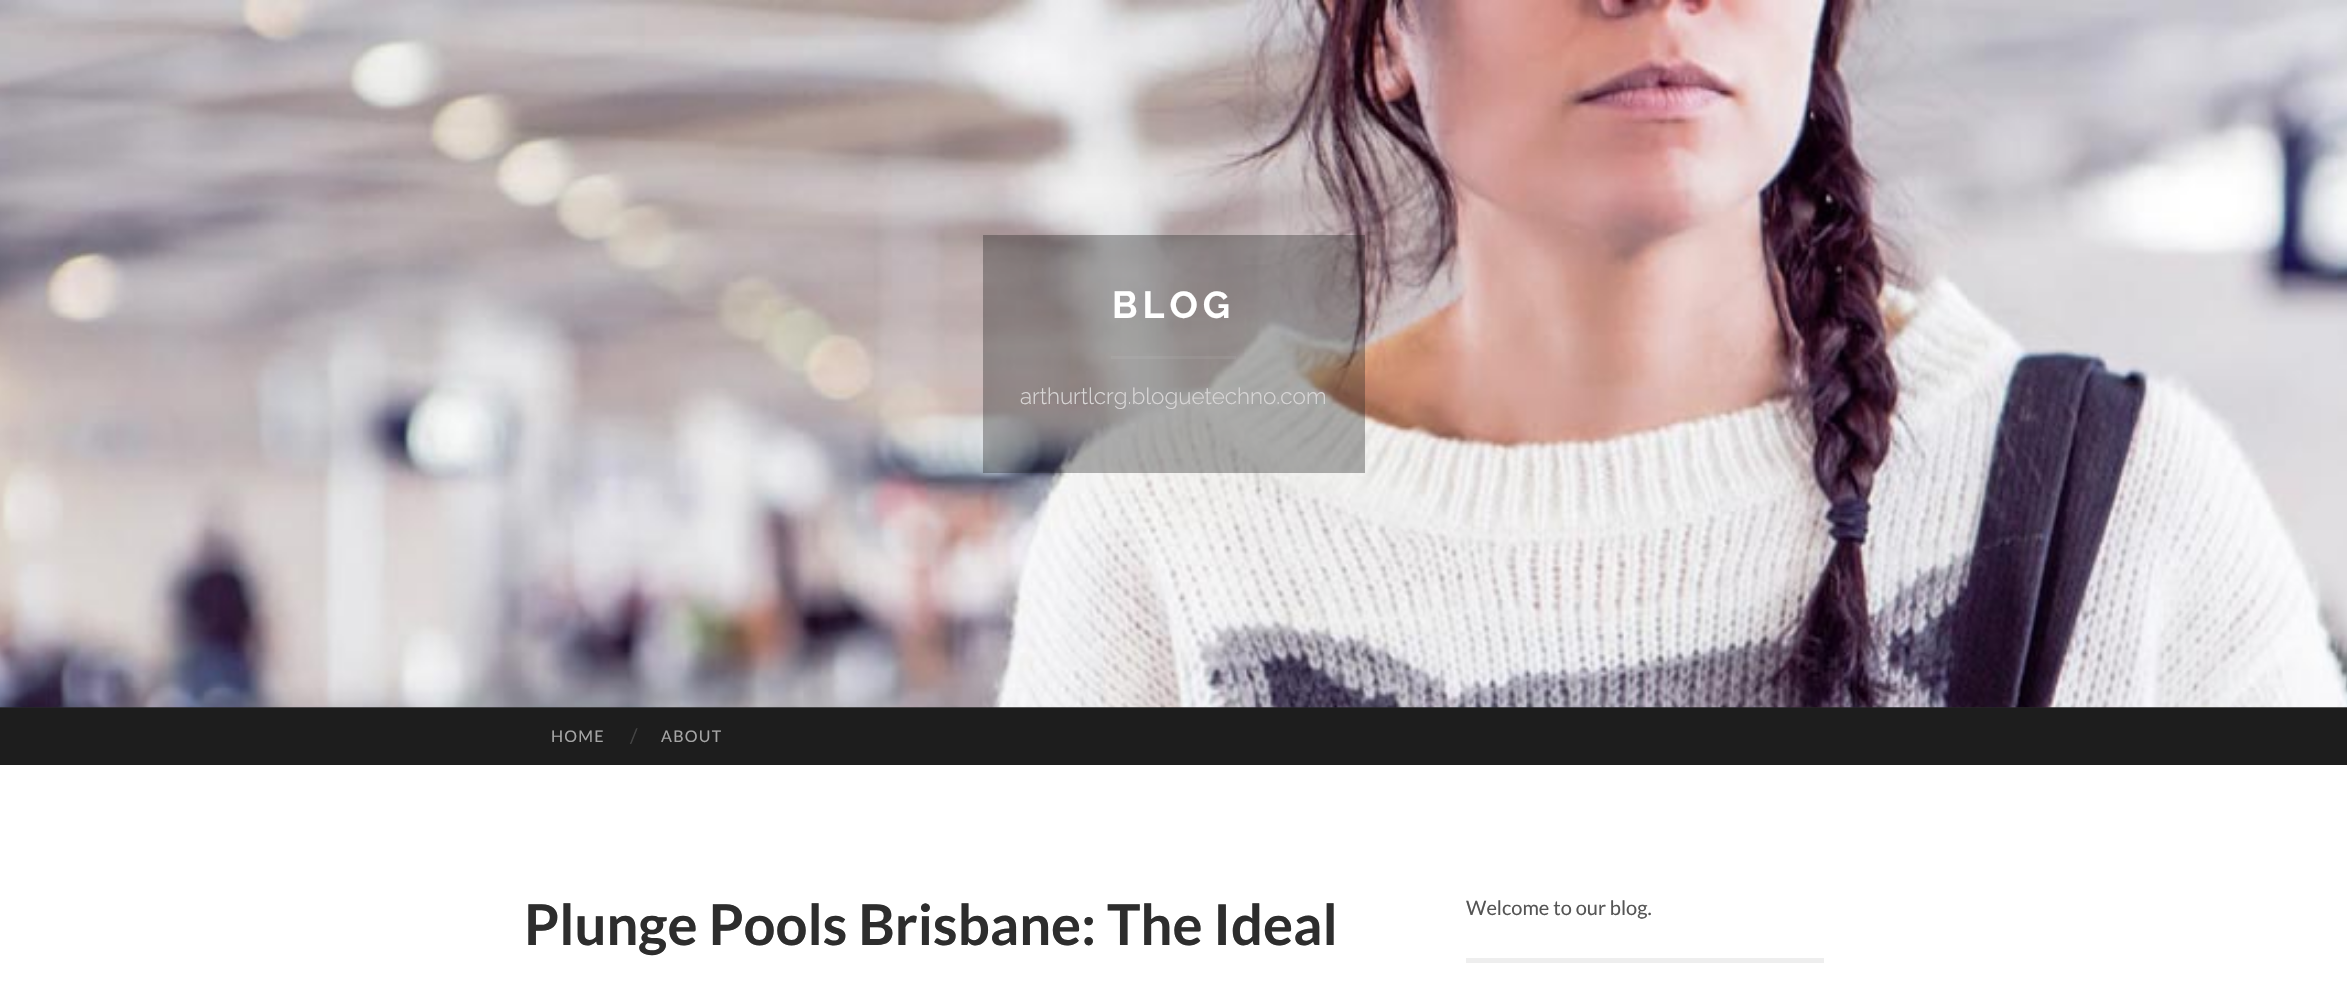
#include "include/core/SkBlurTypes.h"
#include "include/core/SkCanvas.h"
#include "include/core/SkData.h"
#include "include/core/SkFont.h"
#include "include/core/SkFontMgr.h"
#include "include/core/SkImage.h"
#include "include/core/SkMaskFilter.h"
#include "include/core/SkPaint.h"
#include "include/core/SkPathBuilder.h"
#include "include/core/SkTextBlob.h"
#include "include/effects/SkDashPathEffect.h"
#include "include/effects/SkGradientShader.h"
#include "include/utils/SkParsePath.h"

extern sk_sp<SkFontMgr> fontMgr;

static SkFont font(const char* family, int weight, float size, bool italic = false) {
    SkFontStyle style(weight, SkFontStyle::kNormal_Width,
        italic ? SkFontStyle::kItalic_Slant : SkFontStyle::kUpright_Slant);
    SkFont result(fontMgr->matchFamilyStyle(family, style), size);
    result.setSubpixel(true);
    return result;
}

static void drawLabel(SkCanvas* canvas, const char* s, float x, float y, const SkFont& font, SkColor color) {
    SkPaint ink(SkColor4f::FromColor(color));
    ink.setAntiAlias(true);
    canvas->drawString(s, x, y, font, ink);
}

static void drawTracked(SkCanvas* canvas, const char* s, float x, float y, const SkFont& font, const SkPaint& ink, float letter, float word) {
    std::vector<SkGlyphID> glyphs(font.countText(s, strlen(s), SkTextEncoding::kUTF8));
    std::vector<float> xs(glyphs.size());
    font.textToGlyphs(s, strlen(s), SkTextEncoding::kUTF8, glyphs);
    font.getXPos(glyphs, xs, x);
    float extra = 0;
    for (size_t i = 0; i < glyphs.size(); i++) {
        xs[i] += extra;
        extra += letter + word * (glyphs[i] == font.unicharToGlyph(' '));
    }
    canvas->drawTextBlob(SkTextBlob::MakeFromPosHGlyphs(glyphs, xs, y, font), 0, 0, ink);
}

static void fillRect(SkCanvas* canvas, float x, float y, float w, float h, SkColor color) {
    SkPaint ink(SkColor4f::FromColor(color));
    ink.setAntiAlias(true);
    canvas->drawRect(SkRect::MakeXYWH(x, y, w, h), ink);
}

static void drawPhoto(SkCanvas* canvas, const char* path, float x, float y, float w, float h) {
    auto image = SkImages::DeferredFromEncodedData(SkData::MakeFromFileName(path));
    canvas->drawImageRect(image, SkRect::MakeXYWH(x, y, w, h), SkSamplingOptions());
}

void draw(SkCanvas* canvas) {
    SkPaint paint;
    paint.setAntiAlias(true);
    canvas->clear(0xFFFFFFFF);
    fillRect(canvas, 0, 707, 2347, 1, 0xFF262626);
    drawPhoto(canvas, "assets/img1.png", 0, 0, 2347, 708);
    fillRect(canvas, 983, 235, 382, 238, 0x571D1D1D);
    SkFont font1 = font("Raleway", 700, 37.5f);
    paint.setColor(0xFFFFFFFF);
    drawTracked(canvas, "BLOG", 1112, 318, font1, paint, 5, 0);
    fillRect(canvas, 1111, 356, 125, 3, 0x0FFFFFFF);
    SkFont font2 = font("Raleway", 300, 22.5f);
    drawLabel(canvas, "arthurtlcrg.bloguetechno.com", 1020, 404, font2, 0xFFD9D7D7);
    fillRect(canvas, 0, 708, 2347, 57, 0xFF1D1D1D);
    SkFont font3 = font("Lato", 400, 16);
    paint.setColor(0xFFA5A5A5);
    drawTracked(canvas, "HOME", 551, 742, font3, paint, 1.25f, 0);
    SkFont font4 = font("Lato", 400, 20);
    drawLabel(canvas, "/", 630, 743, font4, 0xFF444444);
    drawTracked(canvas, "ABOUT", 661, 742, font3, paint, 1.25f, 0);
    SkFont font5 = font("Lato", 700, 56.25f);
    drawLabel(canvas, "Plunge Pools Brisbane: The Ideal", 524, 945, font5, 0xFF2D2D2D);
    fillRect(canvas, 1466, 958, 358, 5, 0xFFEEEEEE);
    drawLabel(canvas, "Welcome to our blog.", 1466, 915, font4, 0xFF555555);
}
